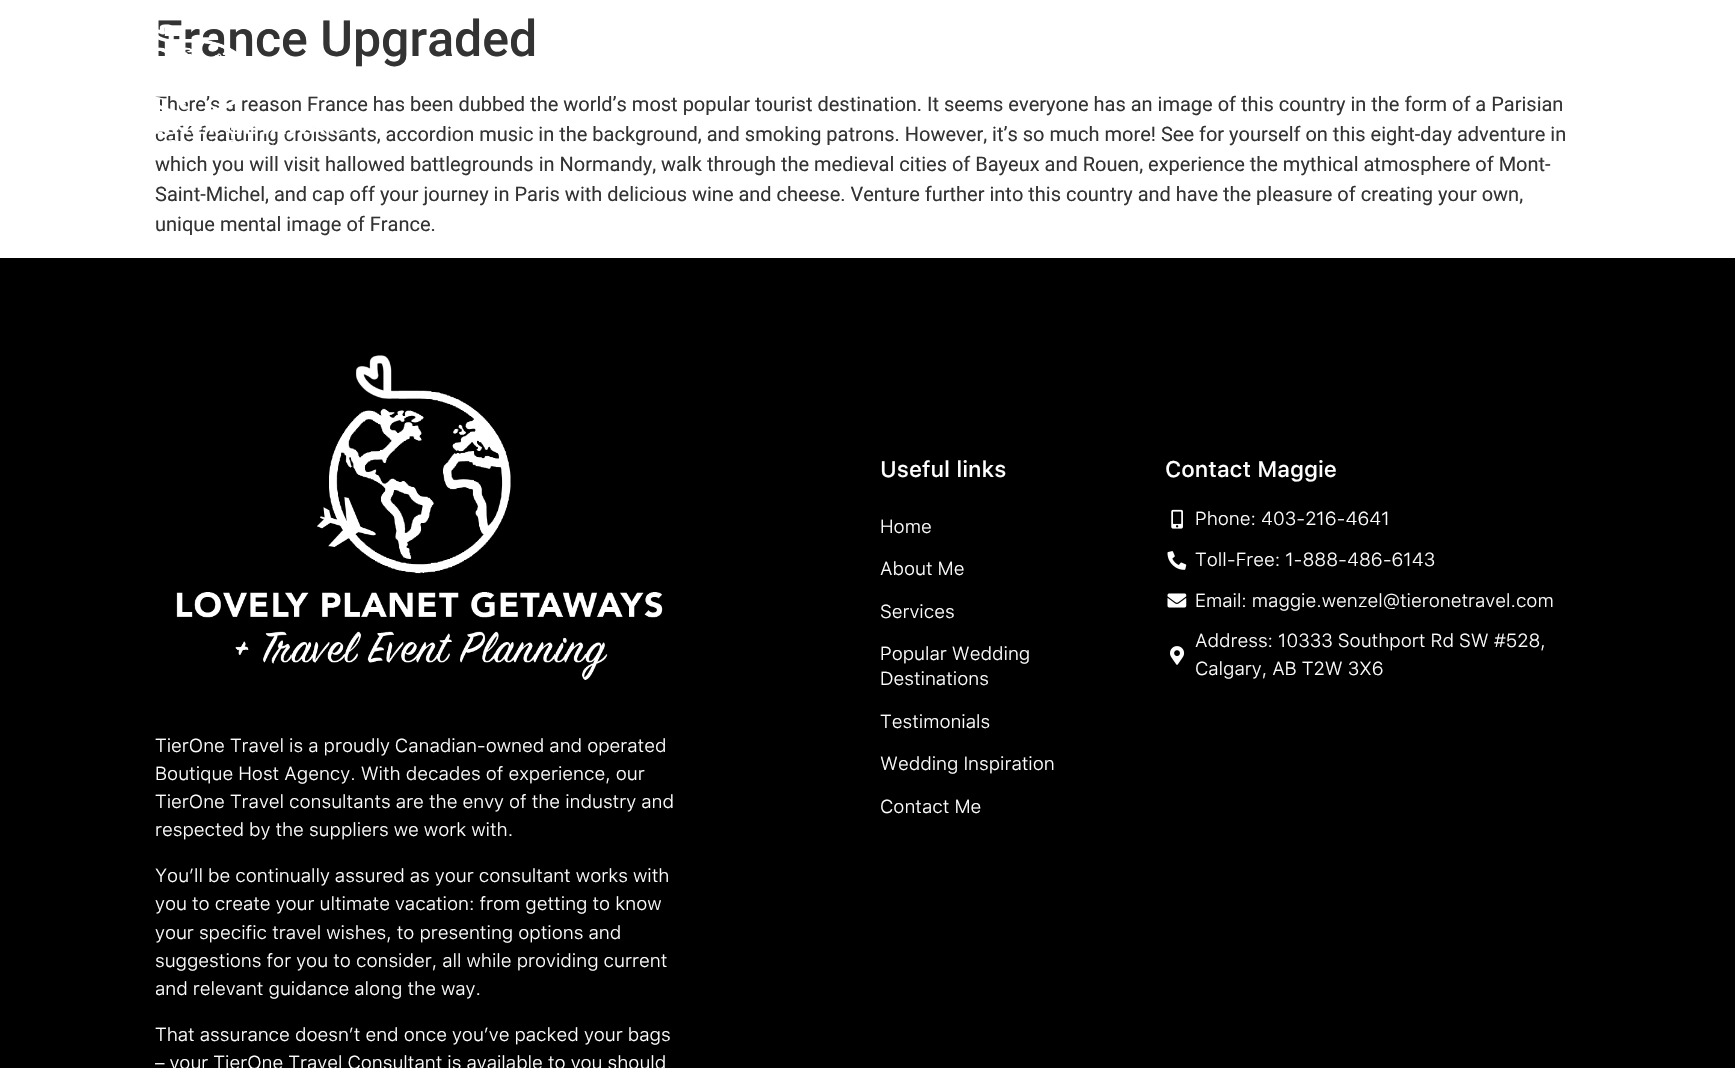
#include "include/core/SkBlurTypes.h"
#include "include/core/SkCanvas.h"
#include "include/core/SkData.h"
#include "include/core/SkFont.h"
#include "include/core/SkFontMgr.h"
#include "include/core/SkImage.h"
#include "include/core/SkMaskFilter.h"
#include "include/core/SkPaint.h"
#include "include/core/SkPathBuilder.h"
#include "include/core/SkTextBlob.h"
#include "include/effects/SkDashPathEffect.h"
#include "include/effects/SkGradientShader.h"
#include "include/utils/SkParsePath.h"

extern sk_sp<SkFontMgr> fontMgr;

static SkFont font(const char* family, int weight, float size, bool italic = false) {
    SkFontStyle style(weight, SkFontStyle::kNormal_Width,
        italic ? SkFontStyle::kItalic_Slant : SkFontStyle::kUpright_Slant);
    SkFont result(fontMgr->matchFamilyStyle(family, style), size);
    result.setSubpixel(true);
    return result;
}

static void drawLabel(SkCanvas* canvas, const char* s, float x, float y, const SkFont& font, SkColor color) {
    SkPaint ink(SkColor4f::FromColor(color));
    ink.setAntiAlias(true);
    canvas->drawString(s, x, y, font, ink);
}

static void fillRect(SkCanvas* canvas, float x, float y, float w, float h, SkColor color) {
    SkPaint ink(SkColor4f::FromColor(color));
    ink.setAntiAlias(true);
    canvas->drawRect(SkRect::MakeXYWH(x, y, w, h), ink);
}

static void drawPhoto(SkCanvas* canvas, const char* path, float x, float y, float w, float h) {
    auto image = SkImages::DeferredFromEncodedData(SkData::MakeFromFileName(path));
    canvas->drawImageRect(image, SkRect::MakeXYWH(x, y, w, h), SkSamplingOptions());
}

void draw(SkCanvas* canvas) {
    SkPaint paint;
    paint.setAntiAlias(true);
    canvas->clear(0xFFFFFFFF);
    SkFont font1 = font("Roboto", 500, 50);
    drawLabel(canvas, "France Upgraded", 155, 56, font1, 0xFF333333);
    SkFont font2 = font("Roboto", 400, 20);
    drawLabel(canvas, "There’s a reason France has been dubbed the world’s most popular tourist destination. It seems everyone has an image of this country in the form of a Parisian", 155, 111, font2, 0xFF333333);
    drawLabel(canvas, "café featuring croissants, accordion music in the background, and smoking patrons. However, it’s so much more! See for yourself on this eight-day adventure in", 155, 141, font2, 0xFF333333);
    drawLabel(canvas, "which you will visit hallowed battlegrounds in Normandy, walk through the medieval cities of Bayeux and Rouen, experience the mythical atmosphere of Mont-", 155, 171, font2, 0xFF333333);
    drawLabel(canvas, "Saint-Michel, and cap off your journey in Paris with delicious wine and cheese. Venture further into this country and have the pleasure of creating your own,", 155, 201, font2, 0xFF333333);
    drawLabel(canvas, "unique mental image of France.", 155, 231, font2, 0xFF333333);
    drawPhoto(canvas, "assets/img1.png", 155, 24, 197, 122);
    fillRect(canvas, 0, 258, 1735, 810, 0xFF000000);
    SkFont font3 = font("SF Pro Text", 500, 22.5f);
    drawLabel(canvas, "Useful links", 880, 477, font3, 0xFFFFFFFF);
    SkFont font4 = font("SF Pro Text", 300, 18.75f);
    drawLabel(canvas, "Home", 880, 533, font4, 0xFFFFFFFF);
    drawLabel(canvas, "About Me", 880, 575, font4, 0xFFFFFFFF);
    drawLabel(canvas, "Services", 880, 618, font4, 0xFFFFFFFF);
    drawLabel(canvas, "Popular Wedding", 880, 660, font4, 0xFFFFFFFF);
    drawLabel(canvas, "Destinations", 880, 685, font4, 0xFFFFFFFF);
    drawLabel(canvas, "Testimonials", 880, 728, font4, 0xFFFFFFFF);
    drawLabel(canvas, "Wedding Inspiration", 880, 770, font4, 0xFFFFFFFF);
    drawLabel(canvas, "Contact Me", 880, 813, font4, 0xFFFFFFFF);
    drawLabel(canvas, "Contact Maggie", 1165, 477, font3, 0xFFFFFFFF);
    drawPhoto(canvas, "assets/img2.png", 1171, 509, 12, 20);
    drawLabel(canvas, "Phone: 403-216-4641", 1195, 525, font4, 0xFFFFFFFF);
    drawPhoto(canvas, "assets/img3.png", 1167, 551, 20, 19);
    drawLabel(canvas, "Toll-Free: 1-888-486-6143", 1195, 566, font4, 0xFFFFFFFF);
    drawPhoto(canvas, "assets/img4.png", 1167, 593, 20, 15);
    drawLabel(canvas, "Email: maggie.wenzel@tieronetravel.com", 1195, 607, font4, 0xFFFFFFFF);
    drawPhoto(canvas, "assets/img5.png", 1170, 646, 15, 19);
    drawLabel(canvas, "Address: 10333 Southport Rd SW #528,", 1195, 647, font4, 0xFFFFFFFF);
    drawLabel(canvas, "Calgary, AB T2W 3X6", 1195, 675, font4, 0xFFFFFFFF);
    drawPhoto(canvas, "assets/img6.png", 176, 355, 487, 325);
    drawLabel(canvas, "TierOne Travel is a proudly Canadian-owned and operated", 155, 752, font4, 0xFFFFFFFF);
    drawLabel(canvas, "Boutique Host Agency. With decades of experience, our", 155, 780, font4, 0xFFFFFFFF);
    drawLabel(canvas, "TierOne Travel consultants are the envy of the industry and", 155, 808, font4, 0xFFFFFFFF);
    drawLabel(canvas, "respected by the suppliers we work with.", 155, 836, font4, 0xFFFFFFFF);
    drawLabel(canvas, "You’ll be continually assured as your consultant works with", 155, 882, font4, 0xFFFFFFFF);
    drawLabel(canvas, "you to create your ultimate vacation: from getting to know", 155, 910, font4, 0xFFFFFFFF);
    drawLabel(canvas, "your specific travel wishes, to presenting options and", 155, 939, font4, 0xFFFFFFFF);
    drawLabel(canvas, "suggestions for you to consider, all while providing current", 155, 967, font4, 0xFFFFFFFF);
    drawLabel(canvas, "and relevant guidance along the way.", 155, 995, font4, 0xFFFFFFFF);
    drawLabel(canvas, "That assurance doesn’t end once you’ve packed your bags", 155, 1041, font4, 0xFFFFFFFF);
    drawLabel(canvas, "– your TierOne Travel Consultant is available to you should", 155, 1069, font4, 0xFFFFFFFF);
}
